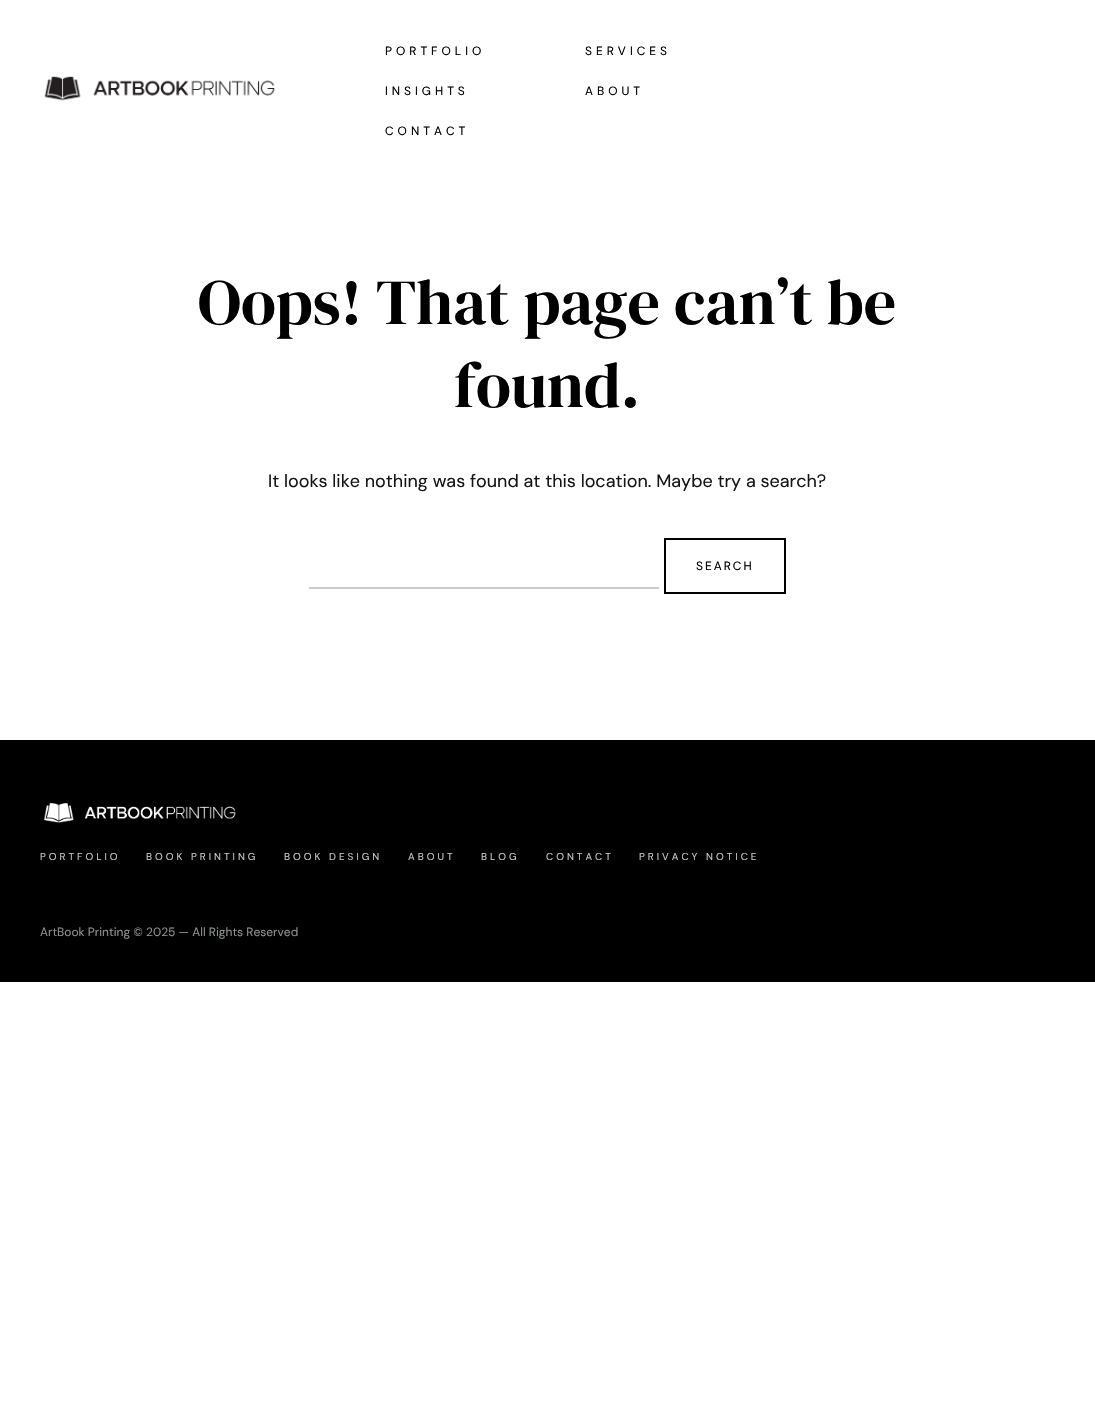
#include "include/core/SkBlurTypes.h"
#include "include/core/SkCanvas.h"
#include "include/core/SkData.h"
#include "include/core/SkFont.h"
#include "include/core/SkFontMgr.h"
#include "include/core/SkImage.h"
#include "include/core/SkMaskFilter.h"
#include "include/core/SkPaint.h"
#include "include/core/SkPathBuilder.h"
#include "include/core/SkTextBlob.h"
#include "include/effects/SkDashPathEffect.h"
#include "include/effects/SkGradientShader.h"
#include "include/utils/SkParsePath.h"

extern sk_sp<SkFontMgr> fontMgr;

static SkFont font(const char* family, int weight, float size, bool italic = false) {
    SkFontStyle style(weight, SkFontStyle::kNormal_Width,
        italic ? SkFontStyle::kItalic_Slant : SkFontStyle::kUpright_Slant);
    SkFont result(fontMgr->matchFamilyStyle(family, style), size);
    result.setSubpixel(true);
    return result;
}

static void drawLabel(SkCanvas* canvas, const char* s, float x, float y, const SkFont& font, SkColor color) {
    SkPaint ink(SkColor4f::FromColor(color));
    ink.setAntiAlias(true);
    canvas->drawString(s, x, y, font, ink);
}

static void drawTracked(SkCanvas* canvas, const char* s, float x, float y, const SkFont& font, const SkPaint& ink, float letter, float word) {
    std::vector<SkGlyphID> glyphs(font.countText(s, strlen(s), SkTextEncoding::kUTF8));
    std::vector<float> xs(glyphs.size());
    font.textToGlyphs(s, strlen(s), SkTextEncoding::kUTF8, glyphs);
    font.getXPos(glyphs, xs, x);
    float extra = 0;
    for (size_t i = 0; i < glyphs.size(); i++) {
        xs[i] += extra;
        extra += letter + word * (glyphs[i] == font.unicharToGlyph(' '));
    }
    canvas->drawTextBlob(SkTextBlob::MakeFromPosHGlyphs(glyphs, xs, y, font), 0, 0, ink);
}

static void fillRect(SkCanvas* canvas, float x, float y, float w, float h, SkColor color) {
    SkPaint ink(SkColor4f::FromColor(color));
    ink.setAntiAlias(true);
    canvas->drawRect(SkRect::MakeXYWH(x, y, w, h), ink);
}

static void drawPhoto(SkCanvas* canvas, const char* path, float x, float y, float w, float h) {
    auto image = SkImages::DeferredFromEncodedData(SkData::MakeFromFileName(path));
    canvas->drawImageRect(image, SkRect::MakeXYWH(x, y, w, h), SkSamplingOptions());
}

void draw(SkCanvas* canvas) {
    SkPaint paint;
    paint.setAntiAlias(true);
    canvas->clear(0xFFFFFFFF);
    drawPhoto(canvas, "assets/img1.png", 44, 76, 231, 25);
    SkFont font1 = font("DM Sans", 400, 12);
    paint.setColor(0xFF000000);
    drawTracked(canvas, "PORTFOLIO", 385, 55, font1, paint, 4, 0);
    drawTracked(canvas, "SERVICES", 585, 55, font1, paint, 4, 0);
    drawTracked(canvas, "INSIGHTS", 385, 95, font1, paint, 4, 0);
    drawTracked(canvas, "ABOUT", 585, 95, font1, paint, 4, 0);
    drawTracked(canvas, "CONTACT", 385, 135, font1, paint, 4, 0);
    SkFont font2 = font("DM Serif Display", 400, 64);
    drawLabel(canvas, "Oops! That page can’t be", 198, 324, font2, 0xFF000000);
    drawLabel(canvas, "found.", 454, 407, font2, 0xFF000000);
    SkFont font3 = font("DM Sans", 400, 18);
    drawLabel(canvas, "It looks like nothing was found at this location. Maybe try a search?", 268, 487, font3, 0xFF141414);
    paint.setStroke(true);
    paint.setStrokeWidth(2);
    canvas->drawRect(SkRect::MakeXYWH(665, 539, 120, 54), paint);
    paint.setStroke(false);
    drawTracked(canvas, "SEARCH", 696, 570, font1, paint, 2, 0);
    fillRect(canvas, 309, 587, 350, 2, 0xFFCCCCCC);
    fillRect(canvas, 0, 740, 1095, 242, 0xFF000000);
    drawPhoto(canvas, "assets/img2.png", 44, 803, 192, 20);
    SkFont font4 = font("DM Sans", 400, 10);
    paint.setColor(0xFFC7C7C7);
    drawTracked(canvas, "PORTFOLIO", 40, 860, font4, paint, 3, 0);
    drawTracked(canvas, "BOOK PRINTING", 146, 860, font4, paint, 3, 0);
    drawTracked(canvas, "BOOK DESIGN", 284, 860, font4, paint, 3, 0);
    drawTracked(canvas, "ABOUT", 408, 860, font4, paint, 3, 0);
    drawTracked(canvas, "BLOG", 481, 860, font4, paint, 3, 0);
    drawTracked(canvas, "CONTACT", 546, 860, font4, paint, 3, 0);
    drawTracked(canvas, "PRIVACY NOTICE", 639, 860, font4, paint, 3, 0);
    drawLabel(canvas, "ArtBook Printing © 2025 — All Rights Reserved", 40, 936, font1, 0xFF8E9294);
}
